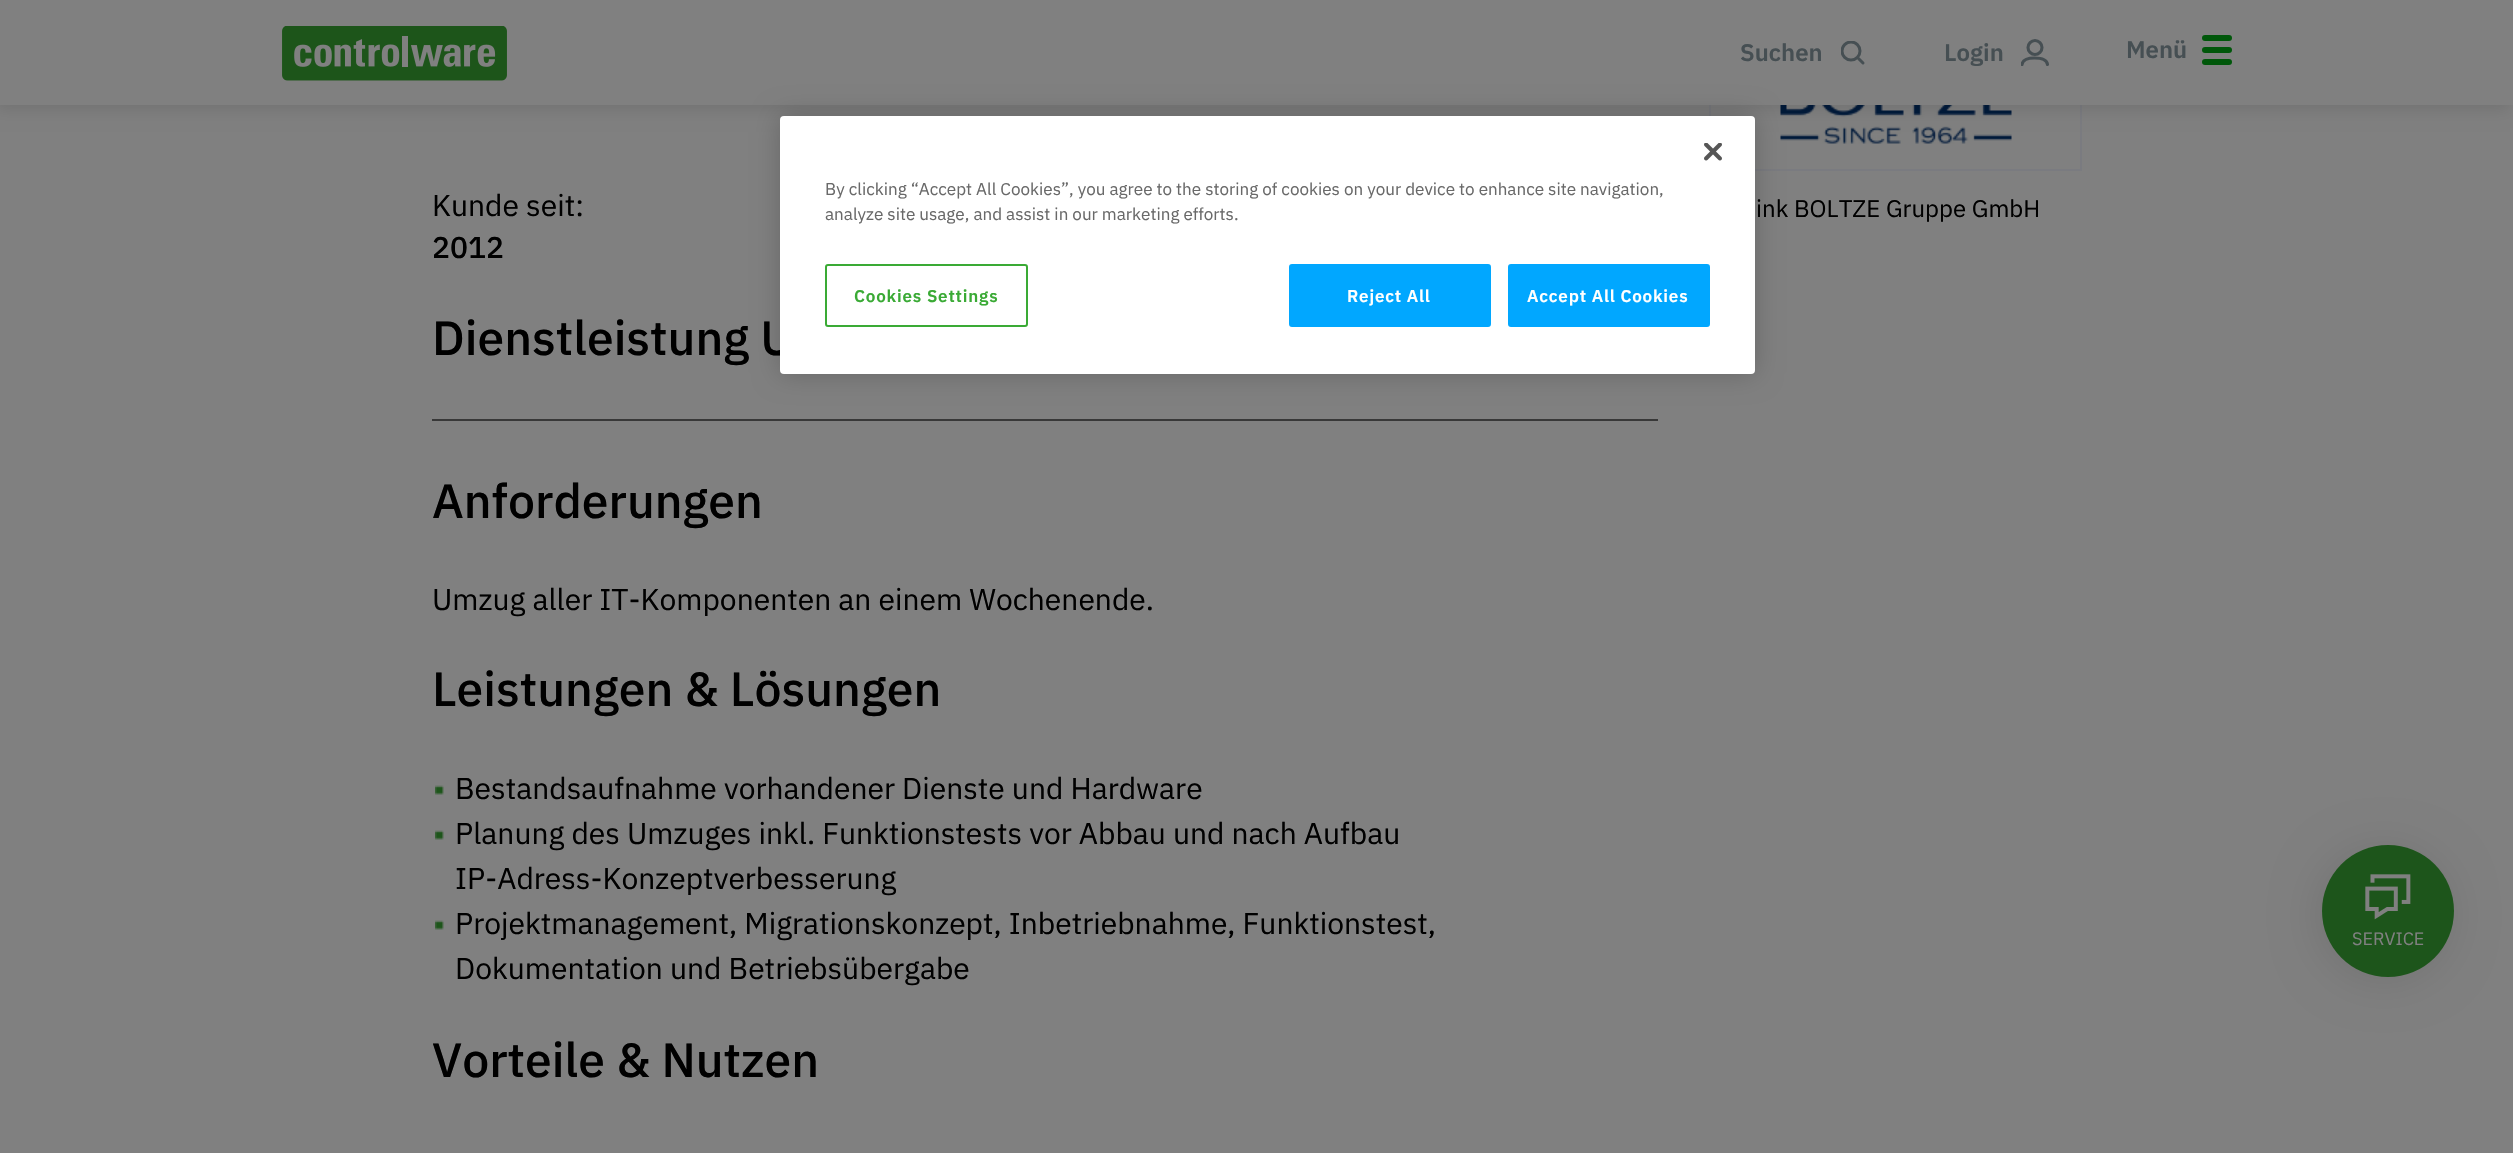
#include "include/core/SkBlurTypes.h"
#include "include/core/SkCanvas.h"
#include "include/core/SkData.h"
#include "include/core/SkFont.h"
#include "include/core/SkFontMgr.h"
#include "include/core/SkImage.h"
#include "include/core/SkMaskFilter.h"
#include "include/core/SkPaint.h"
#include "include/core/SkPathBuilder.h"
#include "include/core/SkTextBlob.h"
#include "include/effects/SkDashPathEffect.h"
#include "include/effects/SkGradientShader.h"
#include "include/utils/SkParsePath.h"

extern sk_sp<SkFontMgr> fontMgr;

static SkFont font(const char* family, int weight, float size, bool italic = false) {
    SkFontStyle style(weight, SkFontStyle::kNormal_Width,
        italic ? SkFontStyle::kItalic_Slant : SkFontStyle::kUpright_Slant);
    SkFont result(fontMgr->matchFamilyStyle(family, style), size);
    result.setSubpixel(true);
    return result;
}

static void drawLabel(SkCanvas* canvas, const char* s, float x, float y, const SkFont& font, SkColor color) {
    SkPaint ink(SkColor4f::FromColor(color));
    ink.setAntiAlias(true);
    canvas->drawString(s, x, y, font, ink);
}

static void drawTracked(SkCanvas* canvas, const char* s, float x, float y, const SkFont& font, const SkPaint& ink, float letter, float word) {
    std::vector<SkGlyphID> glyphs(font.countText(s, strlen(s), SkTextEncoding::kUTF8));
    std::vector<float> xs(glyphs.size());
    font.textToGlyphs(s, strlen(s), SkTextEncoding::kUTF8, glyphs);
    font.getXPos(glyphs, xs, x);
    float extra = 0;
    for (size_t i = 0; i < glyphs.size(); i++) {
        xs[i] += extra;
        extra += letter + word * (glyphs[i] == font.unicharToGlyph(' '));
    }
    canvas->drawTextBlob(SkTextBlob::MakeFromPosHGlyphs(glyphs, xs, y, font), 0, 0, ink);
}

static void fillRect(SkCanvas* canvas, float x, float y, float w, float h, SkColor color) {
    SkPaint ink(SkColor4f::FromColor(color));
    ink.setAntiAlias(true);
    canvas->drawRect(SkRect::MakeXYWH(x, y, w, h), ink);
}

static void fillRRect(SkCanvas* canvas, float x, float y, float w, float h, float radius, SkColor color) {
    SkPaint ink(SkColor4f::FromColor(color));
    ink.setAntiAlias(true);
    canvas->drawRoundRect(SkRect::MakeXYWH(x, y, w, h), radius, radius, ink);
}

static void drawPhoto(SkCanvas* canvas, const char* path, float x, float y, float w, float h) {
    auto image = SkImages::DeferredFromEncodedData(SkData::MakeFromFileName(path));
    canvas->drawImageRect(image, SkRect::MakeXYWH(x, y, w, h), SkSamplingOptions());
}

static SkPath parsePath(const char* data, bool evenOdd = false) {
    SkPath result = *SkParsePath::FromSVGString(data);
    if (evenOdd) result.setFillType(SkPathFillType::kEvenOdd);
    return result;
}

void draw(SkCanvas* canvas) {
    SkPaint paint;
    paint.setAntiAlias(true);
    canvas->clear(0xFF808080);
    paint.setStroke(true);
    paint.setStrokeWidth(2);
    paint.setColor(0xFF7A7B80);
    canvas->drawRect(SkRect::MakeXYWH(1710, 46, 371, 124), paint);
    drawPhoto(canvas, "assets/img3.png", 1780, 105, 232, 39);
    paint.setStroke(false);
    paint.setColor(0x1A000000);
    paint.setMaskFilter(SkMaskFilter::MakeBlur(kNormal_SkBlurStyle, 7.5f));
    canvas->drawRect(SkRect::MakeXYWH(-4, 5, 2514, 105), paint);
    paint.setMaskFilter(nullptr);
    fillRect(canvas, 0, 0, 2513, 105, 0xFF808080);
    drawPhoto(canvas, "assets/img1.png", 282, 26, 225, 55);
    SkFont font1 = font("IBM Plex Sans", 600, 24);
    drawLabel(canvas, "Suchen", 1740, 61, font1, 0xFF464F53);
    canvas->save();
    canvas->clipRect(SkRect::MakeXYWH(1841, 41, 24, 24));
    paint.setStroke(true);
    paint.setStrokeWidth(3);
    paint.setColor(0xFF464F53);
    canvas->drawCircle(1851, 51, 9, paint);
    canvas->restore();
    paint.setStrokeCap(SkPaint::kRound_Cap);
    canvas->drawPath(parsePath("M1858.5 58.5L1863 63"), paint);
    drawLabel(canvas, "Login", 1944, 61, font1, 0xFF464F53);
    paint.setStrokeWidth(3.1f);
    paint.setStrokeCap(SkPaint::kButt_Cap);
    canvas->drawCircle(2035, 47.5f, 7, paint);
    canvas->save();
    canvas->clipRect(SkRect::MakeXYWH(2021, 39, 28, 27));
    paint.setStrokeCap(SkPaint::kRound_Cap);
    canvas->drawPath(parsePath("M2022 64.5C2022.5 60 2027 58 2034.5 58C2042.5 58 2047 60 2047.5 64.5"), paint);
    canvas->restore();
    drawLabel(canvas, "Menü", 2126, 58, font1, 0xFF464F53);
    fillRRect(canvas, 2202, 35, 30, 6, 3, 0xFF00570A);
    fillRRect(canvas, 2202, 47, 30, 6, 3, 0xFF00570A);
    fillRRect(canvas, 2202, 59, 30, 6, 3, 0xFF00570A);
    SkFont font2 = font("IBM Plex Sans", 400, 30);
    drawLabel(canvas, "Kunde seit:", 432, 216, font2, 0xFF000000);
    SkFont font3 = font("IBM Plex Sans", 500, 30);
    drawLabel(canvas, "2012", 432, 258, font3, 0xFF000000);
    SkFont font4 = font("IBM Plex Sans", 500, 48);
    drawLabel(canvas, "Dienstleistung U", 432, 355, font4, 0xFF000000);
    fillRect(canvas, 432, 419, 1226, 2, 0xFF383838);
    drawLabel(canvas, "Anforderungen", 432, 518, font4, 0xFF000000);
    drawLabel(canvas, "Umzug aller IT-Komponenten an einem Wochenende.", 432, 610, font2, 0xFF000000);
    drawLabel(canvas, "Leistungen & Lösungen", 432, 706, font4, 0xFF000000);
    drawPhoto(canvas, "assets/img2.png", 435, 785, 9, 10);
    drawLabel(canvas, "Bestandsaufnahme vorhandener Dienste und Hardware", 455, 799, font2, 0xFF000000);
    drawPhoto(canvas, "assets/img2.png", 435, 830, 9, 10);
    drawLabel(canvas, "Planung des Umzuges inkl. Funktionstests vor Abbau und nach Aufbau", 455, 844, font2, 0xFF000000);
    drawLabel(canvas, "IP-Adress-Konzeptverbesserung", 455, 889, font2, 0xFF000000);
    drawPhoto(canvas, "assets/img2.png", 435, 920, 9, 10);
    drawLabel(canvas, "Projektmanagement, Migrationskonzept, Inbetriebnahme, Funktionstest,", 455, 934, font2, 0xFF000000);
    drawLabel(canvas, "Dokumentation und Betriebsübergabe", 455, 979, font2, 0xFF000000);
    drawLabel(canvas, "Vorteile & Nutzen", 432, 1077, font4, 0xFF000000);
    SkFont font5 = font("IBM Plex Sans", 400, 24);
    drawLabel(canvas, "ink BOLTZE Gruppe GmbH", 1756, 217, font5, 0xFF000000);
    paint.setStroke(false);
    paint.setColor(0x33000000);
    paint.setMaskFilter(SkMaskFilter::MakeBlur(kNormal_SkBlurStyle, 13.5f));
    canvas->drawRoundRect(SkRect::MakeXYWH(780, 116, 975, 258), 4, 4, paint);
    paint.setMaskFilter(nullptr);
    fillRRect(canvas, 780, 116, 975, 258, 4, 0xFFFFFFFF);
    drawPhoto(canvas, "assets/img4.png", 1704, 143, 18, 18);
    SkFont font6 = font("IBM Plex Sans", 400, 17.05f);
    drawLabel(canvas, "By clicking “Accept All Cookies”, you agree to the storing of cookies on your device to enhance site navigation,", 825, 195, font6, 0xFF696969);
    drawLabel(canvas, "analyze site usage, and assist in our marketing efforts.", 825, 220, font6, 0xFF696969);
    paint.setStroke(true);
    paint.setStrokeWidth(2);
    paint.setStrokeCap(SkPaint::kButt_Cap);
    paint.setColor(0xFF3AAA35);
    canvas->drawRoundRect(SkRect::MakeXYWH(826, 265, 201, 61), 2, 2, paint);
    SkFont font7 = font("IBM Plex Sans", 600, 17.05f);
    paint.setStroke(false);
    drawTracked(canvas, "Cookies Settings", 854, 302, font7, paint, 0.8f, 0);
    paint.setColor(0xFF01A7FF);
    canvas->drawRoundRect(SkRect::MakeXYWH(1290, 265, 200, 61), 2, 2, paint);
    paint.setStroke(true);
    canvas->drawRoundRect(SkRect::MakeXYWH(1290, 265, 200, 61), 2, 2, paint);
    paint.setStroke(false);
    paint.setColor(0xFFFFFFFF);
    drawTracked(canvas, "Reject All", 1347, 302, font7, paint, 0.8f, 0);
    paint.setColor(0xFF01A7FF);
    canvas->drawRoundRect(SkRect::MakeXYWH(1509, 265, 200, 61), 2, 2, paint);
    paint.setStroke(true);
    canvas->drawRoundRect(SkRect::MakeXYWH(1509, 265, 200, 61), 2, 2, paint);
    paint.setStroke(false);
    paint.setColor(0xFFFFFFFF);
    drawTracked(canvas, "Accept All Cookies", 1527, 302, font7, paint, 0.8f, 0);
    paint.setColor(0x1A000000);
    paint.setMaskFilter(SkMaskFilter::MakeBlur(kNormal_SkBlurStyle, 22.5f));
    canvas->drawRoundRect(SkRect::MakeXYWH(2318, 849, 132, 132), 66, 66, paint);
    paint.setMaskFilter(nullptr);
    paint.setColor(0xFF1D551B);
    canvas->drawCircle(2388, 911, 66, paint);
    drawPhoto(canvas, "assets/img5.png", 2365, 874, 46, 46);
    SkFont font8 = font("IBM Plex Sans", 400, 18);
    drawLabel(canvas, "SERVICE", 2352, 945, font8, 0xFF808080);
}
